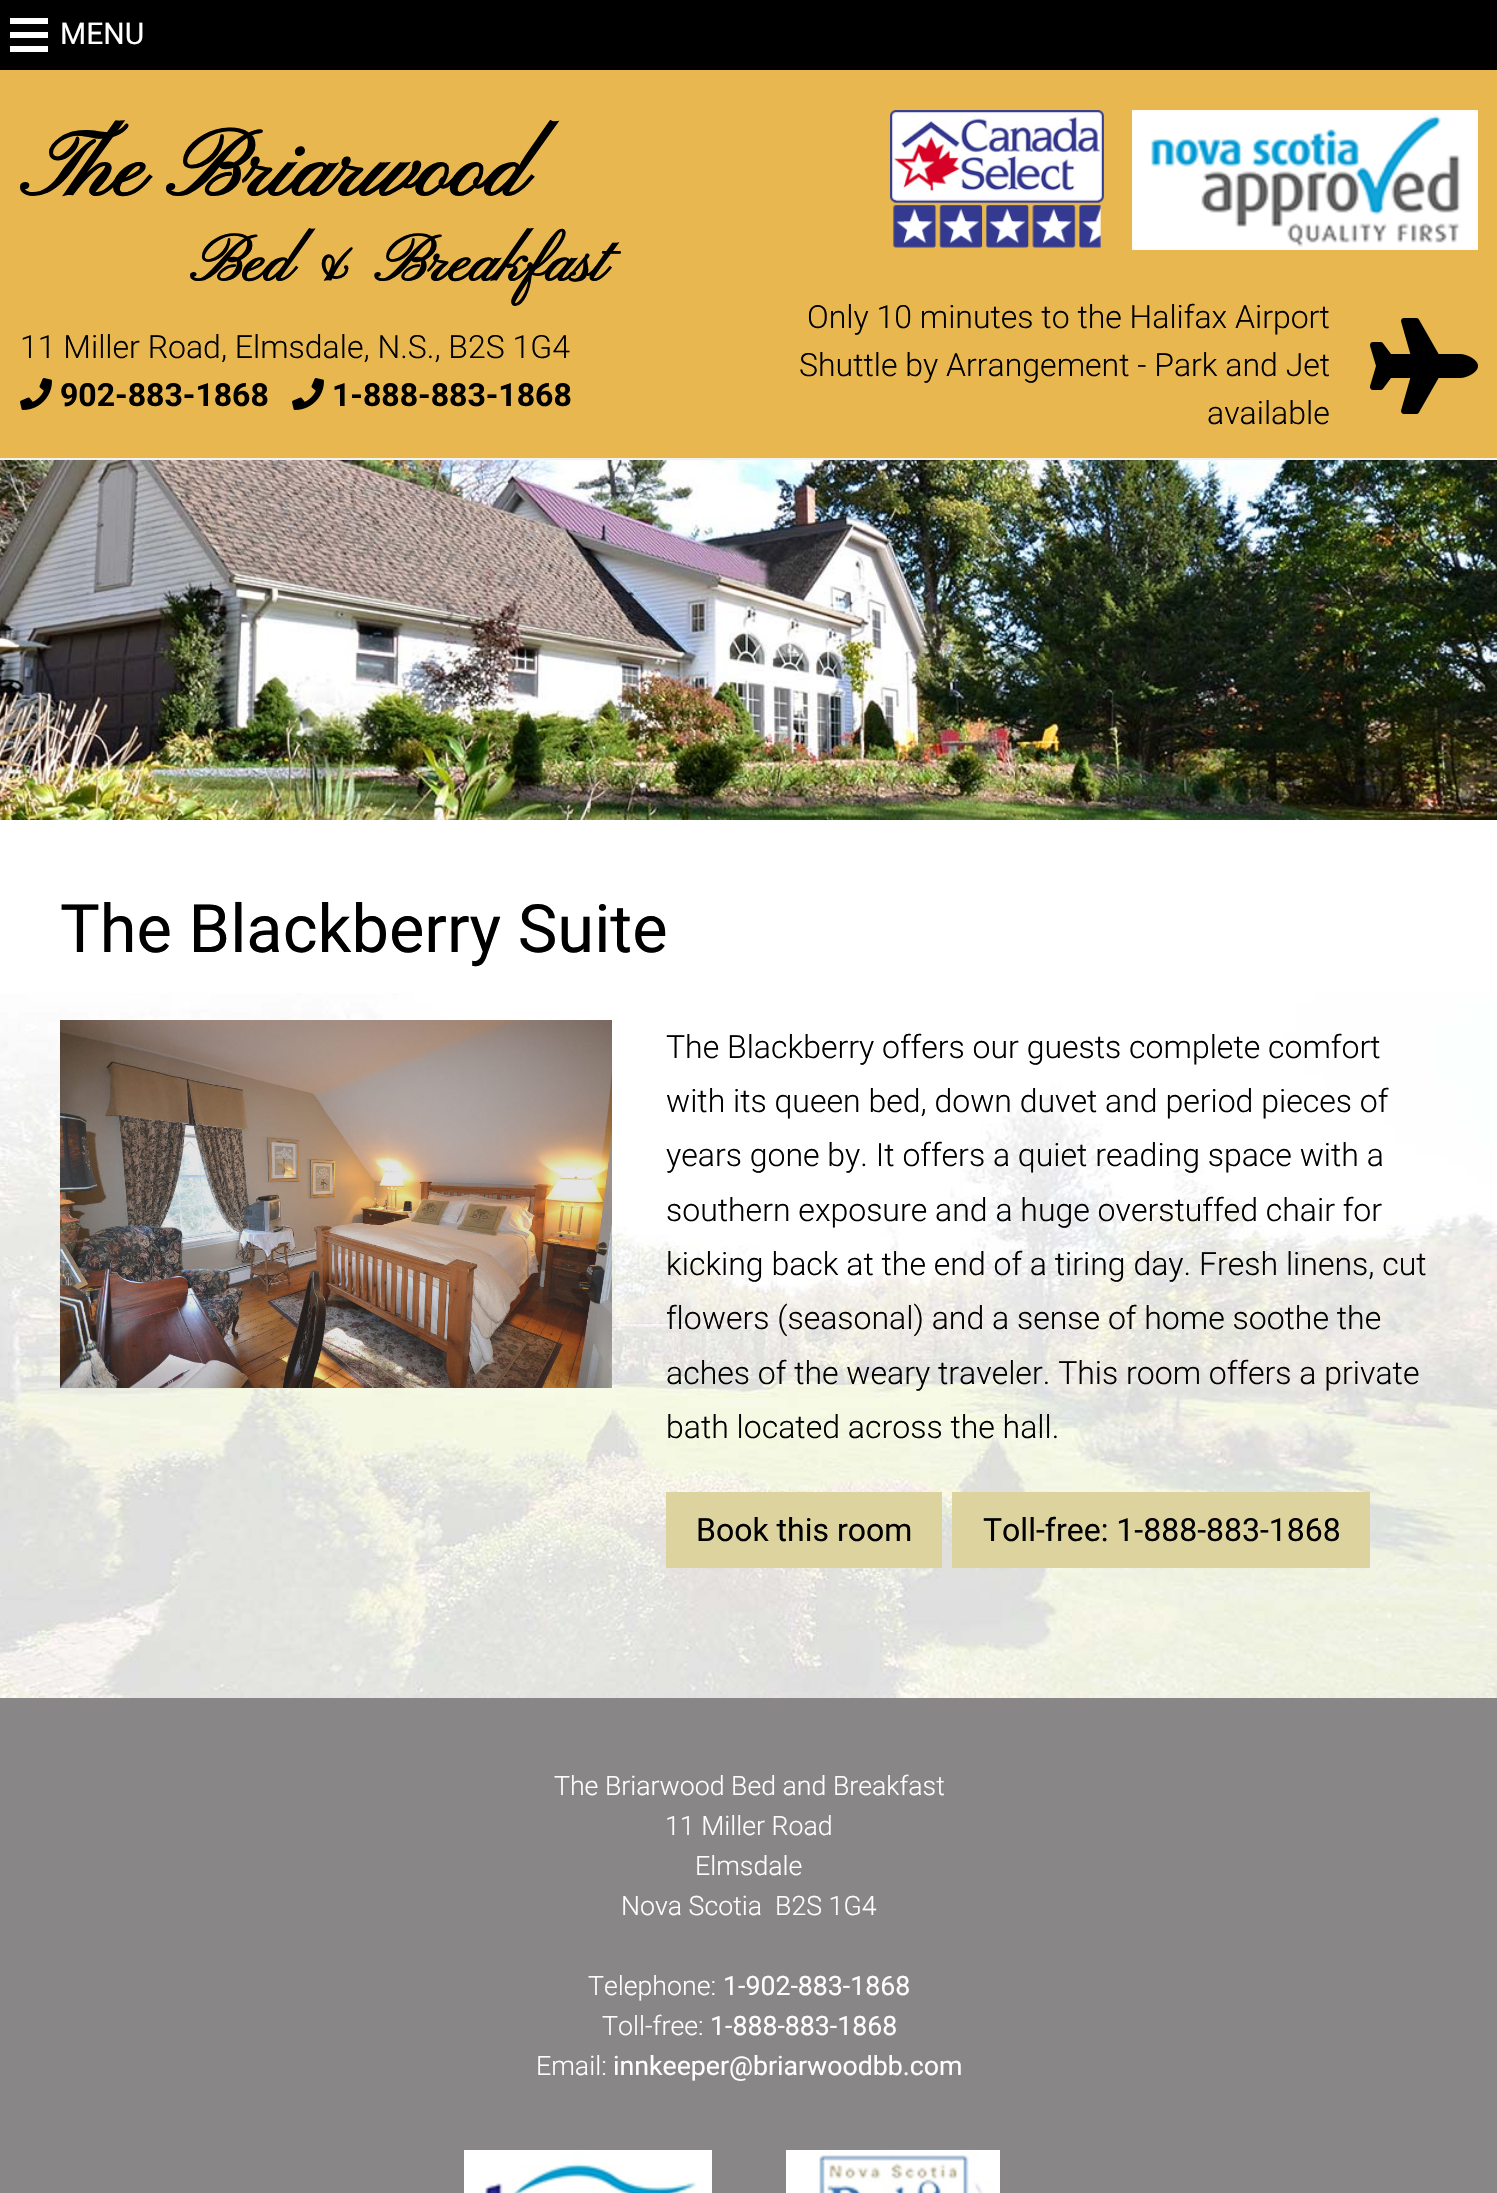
#include "include/core/SkBlurTypes.h"
#include "include/core/SkCanvas.h"
#include "include/core/SkData.h"
#include "include/core/SkFont.h"
#include "include/core/SkFontMgr.h"
#include "include/core/SkImage.h"
#include "include/core/SkMaskFilter.h"
#include "include/core/SkPaint.h"
#include "include/core/SkPathBuilder.h"
#include "include/core/SkTextBlob.h"
#include "include/effects/SkDashPathEffect.h"
#include "include/effects/SkGradientShader.h"
#include "include/utils/SkParsePath.h"

extern sk_sp<SkFontMgr> fontMgr;

static SkFont font(const char* family, int weight, float size, bool italic = false) {
    SkFontStyle style(weight, SkFontStyle::kNormal_Width,
        italic ? SkFontStyle::kItalic_Slant : SkFontStyle::kUpright_Slant);
    SkFont result(fontMgr->matchFamilyStyle(family, style), size);
    result.setSubpixel(true);
    return result;
}

static void drawLabel(SkCanvas* canvas, const char* s, float x, float y, const SkFont& font, SkColor color) {
    SkPaint ink(SkColor4f::FromColor(color));
    ink.setAntiAlias(true);
    canvas->drawString(s, x, y, font, ink);
}

static void fillRect(SkCanvas* canvas, float x, float y, float w, float h, SkColor color) {
    SkPaint ink(SkColor4f::FromColor(color));
    ink.setAntiAlias(true);
    canvas->drawRect(SkRect::MakeXYWH(x, y, w, h), ink);
}

static void drawPhoto(SkCanvas* canvas, const char* path, float x, float y, float w, float h) {
    auto image = SkImages::DeferredFromEncodedData(SkData::MakeFromFileName(path));
    canvas->drawImageRect(image, SkRect::MakeXYWH(x, y, w, h), SkSamplingOptions());
}

void draw(SkCanvas* canvas) {
    SkPaint paint;
    paint.setAntiAlias(true);
    canvas->clear(0xFFFFFFFF);
    fillRect(canvas, 0, 0, 1497, 70, 0xFF000000);
    fillRect(canvas, 10, 18, 38, 6, 0xFFFFFFFF);
    fillRect(canvas, 10, 32, 38, 6, 0xFFFFFFFF);
    SkFont font1 = font("Roboto", 400, 30);
    drawLabel(canvas, "MENU", 60, 44, font1, 0xFFFFFFFF);
    fillRect(canvas, 10, 46, 38, 6, 0xFFFFFFFF);
    fillRect(canvas, 0, 458, 1497, 2, 0xFFF2F3F1);
    fillRect(canvas, 0, 70, 1497, 388, 0xFFE8B750);
    SkFont font2 = font("Pinyon Script", 700, 93.5f);
    drawLabel(canvas, "The Briarwood", 20, 196, font2, 0xFF000000);
    SkFont font3 = font("Pinyon Script", 700, 65.25f);
    drawLabel(canvas, "Bed & Breakfast", 190, 281, font3, 0xFF000000);
    SkFont font4 = font("Roboto", 300, 32);
    drawLabel(canvas, "11 Miller Road, Elmsdale, N.S., B2S 1G4", 20, 358, font4, 0xFF000000);
    drawPhoto(canvas, "assets/img1.png", 20, 378, 32, 32);
    SkFont font5 = font("Roboto", 700, 32);
    drawLabel(canvas, "902-883-1868", 60, 406, font5, 0xFF000000);
    drawPhoto(canvas, "assets/img1.png", 292, 378, 32, 32);
    drawLabel(canvas, "1-888-883-1868", 332, 406, font5, 0xFF000000);
    drawPhoto(canvas, "assets/img2.png", 890, 110, 214, 138);
    drawPhoto(canvas, "assets/img3.png", 1132, 110, 346, 140);
    drawLabel(canvas, "Only 10 minutes to the Halifax Airport", 807, 328, font4, 0xFF000000);
    drawLabel(canvas, "Shuttle by Arrangement - Park and Jet", 799, 376, font4, 0xFF000000);
    drawLabel(canvas, "available", 1207, 424, font4, 0xFF000000);
    drawPhoto(canvas, "assets/img4.png", 1370, 318, 108, 96);
    drawPhoto(canvas, "assets/img5.png", 0, 460, 1497, 360);
    drawPhoto(canvas, "assets/img6.png", 0, 993, 1497, 705);
    SkFont font6 = font("Roboto", 400, 66.75f);
    drawLabel(canvas, "The Blackberry Suite", 60, 952, font6, 0xFF000000);
    drawPhoto(canvas, "assets/img7.png", 60, 1020, 552, 368);
    drawLabel(canvas, "The Blackberry offers our guests complete comfort", 666, 1058, font4, 0xFF000000);
    drawLabel(canvas, "with its queen bed, down duvet and period pieces of", 666, 1112, font4, 0xFF000000);
    drawLabel(canvas, "years gone by. It offers a quiet reading space with a", 666, 1166, font4, 0xFF000000);
    drawLabel(canvas, "southern exposure and a huge overstuffed chair for", 666, 1221, font4, 0xFF000000);
    drawLabel(canvas, "kicking back at the end of a tiring day. Fresh linens, cut", 666, 1275, font4, 0xFF000000);
    drawLabel(canvas, "flowers (seasonal) and a sense of home soothe the", 666, 1329, font4, 0xFF000000);
    drawLabel(canvas, "aches of the weary traveler. This room offers a private", 666, 1384, font4, 0xFF000000);
    drawLabel(canvas, "bath located across the hall.", 666, 1438, font4, 0xFF000000);
    fillRect(canvas, 666, 1492, 276, 76, 0xFFDDD39E);
    SkFont font7 = font("Roboto", 400, 32);
    drawLabel(canvas, "Book this room", 696, 1541, font7, 0xFF000000);
    fillRect(canvas, 952, 1492, 418, 76, 0xFFDDD39E);
    drawLabel(canvas, "Toll-free: 1-888-883-1868", 983, 1541, font7, 0xFF000000);
    fillRect(canvas, 0, 1698, 1497, 495, 0xFF888686);
    SkFont font8 = font("Roboto", 300, 26.7f);
    drawLabel(canvas, "The Briarwood Bed and Breakfast", 554, 1795, font8, 0xFFFFFFFF);
    drawLabel(canvas, "11 Miller Road", 665, 1835, font8, 0xFFFFFFFF);
    drawLabel(canvas, "Elmsdale", 695, 1875, font8, 0xFFFFFFFF);
    drawLabel(canvas, "Nova Scotia  B2S 1G4", 621, 1915, font8, 0xFFFFFFFF);
    drawLabel(canvas, "Telephone:", 588, 1995, font8, 0xFFFFFFFF);
    SkFont font9 = font("Roboto", 400, 26.7f);
    drawLabel(canvas, "1-902-883-1868", 723, 1995, font9, 0xFFFFFFFF);
    drawLabel(canvas, "Toll-free:", 602, 2035, font8, 0xFFFFFFFF);
    drawLabel(canvas, "1-888-883-1868", 710, 2035, font9, 0xFFFFFFFF);
    drawLabel(canvas, "Email:", 536, 2075, font8, 0xFFFFFFFF);
    drawLabel(canvas, "innkeeper@briarwoodbb.com", 613, 2075, font9, 0xFFFFFFFF);
    drawPhoto(canvas, "assets/img8.png", 464, 2150, 248, 43);
    drawPhoto(canvas, "assets/img9.png", 786, 2150, 214, 43);
}
